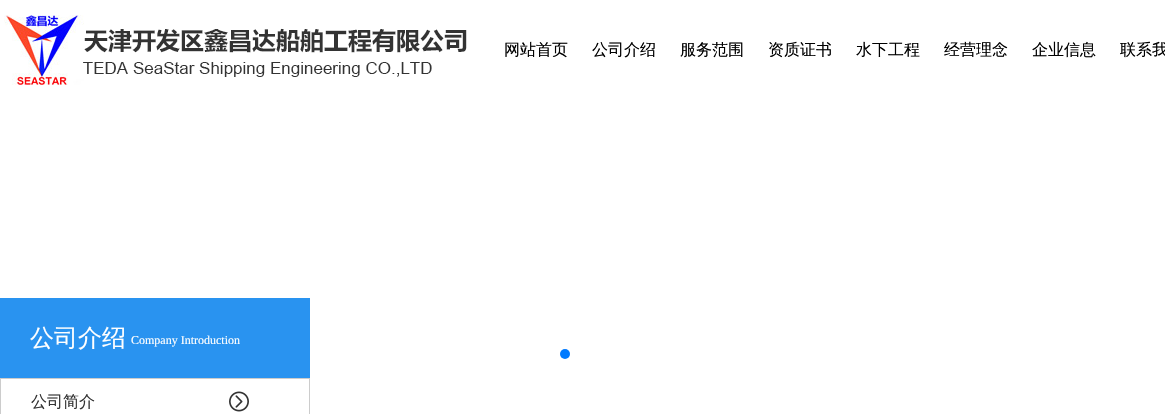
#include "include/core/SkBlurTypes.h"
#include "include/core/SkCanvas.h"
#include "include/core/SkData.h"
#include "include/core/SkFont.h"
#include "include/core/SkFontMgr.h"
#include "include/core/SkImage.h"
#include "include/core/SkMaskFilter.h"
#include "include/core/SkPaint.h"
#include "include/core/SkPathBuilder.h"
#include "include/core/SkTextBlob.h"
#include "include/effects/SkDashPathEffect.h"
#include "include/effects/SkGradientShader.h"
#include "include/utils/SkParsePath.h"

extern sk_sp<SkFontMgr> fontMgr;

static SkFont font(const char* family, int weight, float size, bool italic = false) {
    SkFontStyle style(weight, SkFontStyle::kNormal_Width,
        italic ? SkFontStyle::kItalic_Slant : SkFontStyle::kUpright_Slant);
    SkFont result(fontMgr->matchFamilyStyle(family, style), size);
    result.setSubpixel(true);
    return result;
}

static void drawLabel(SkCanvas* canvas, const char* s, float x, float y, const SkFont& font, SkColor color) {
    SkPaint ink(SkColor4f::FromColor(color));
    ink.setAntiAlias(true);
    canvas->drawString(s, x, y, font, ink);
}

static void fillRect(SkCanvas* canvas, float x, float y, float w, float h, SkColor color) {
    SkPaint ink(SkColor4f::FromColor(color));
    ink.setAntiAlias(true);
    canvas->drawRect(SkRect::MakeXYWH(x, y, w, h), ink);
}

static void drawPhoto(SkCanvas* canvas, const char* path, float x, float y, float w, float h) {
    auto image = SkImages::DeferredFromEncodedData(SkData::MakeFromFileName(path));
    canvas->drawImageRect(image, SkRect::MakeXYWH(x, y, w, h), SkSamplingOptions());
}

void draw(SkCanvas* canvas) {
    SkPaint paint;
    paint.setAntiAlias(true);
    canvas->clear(0xFFFFFFFF);
    drawPhoto(canvas, "assets/img1.png", 4, 15, 463, 70);
    SkFont font1 = font("WenQuanYi Zen Hei", 500, 16);
    drawLabel(canvas, "网站首页", 504, 55, font1, 0xFF000000);
    drawLabel(canvas, "公司介绍", 592, 55, font1, 0xFF000000);
    drawLabel(canvas, "服务范围", 680, 55, font1, 0xFF000000);
    drawLabel(canvas, "资质证书", 768, 55, font1, 0xFF000000);
    drawLabel(canvas, "水下工程", 856, 55, font1, 0xFF000000);
    drawLabel(canvas, "经营理念", 944, 55, font1, 0xFF000000);
    drawLabel(canvas, "企业信息", 1032, 55, font1, 0xFF000000);
    drawLabel(canvas, "联系我", 1120, 55, font1, 0xFF000000);
    paint.setColor(0xFF007AFF);
    canvas->drawCircle(565, 354, 5, paint);
    fillRect(canvas, 0, 298, 310, 80, 0xFF2993F0);
    SkFont font2 = font("WenQuanYi Zen Hei", 500, 24);
    drawLabel(canvas, "公司介绍", 30, 346, font2, 0xFFFFFFFF);
    SkFont font3 = font("Liberation Serif", 400, 12);
    drawLabel(canvas, "Company Introduction", 131, 344, font3, 0xFFFFFFFF);
    paint.setStroke(true);
    paint.setStrokeWidth(1);
    paint.setColor(0xFFCCCCCC);
    canvas->drawRect(SkRect::MakeXYWH(0.5f, 378.5f, 309, 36), paint);
    drawLabel(canvas, "公司简介", 31, 407, font1, 0xFF333333);
    drawPhoto(canvas, "assets/img2.png", 229, 391, 20, 21);
}
